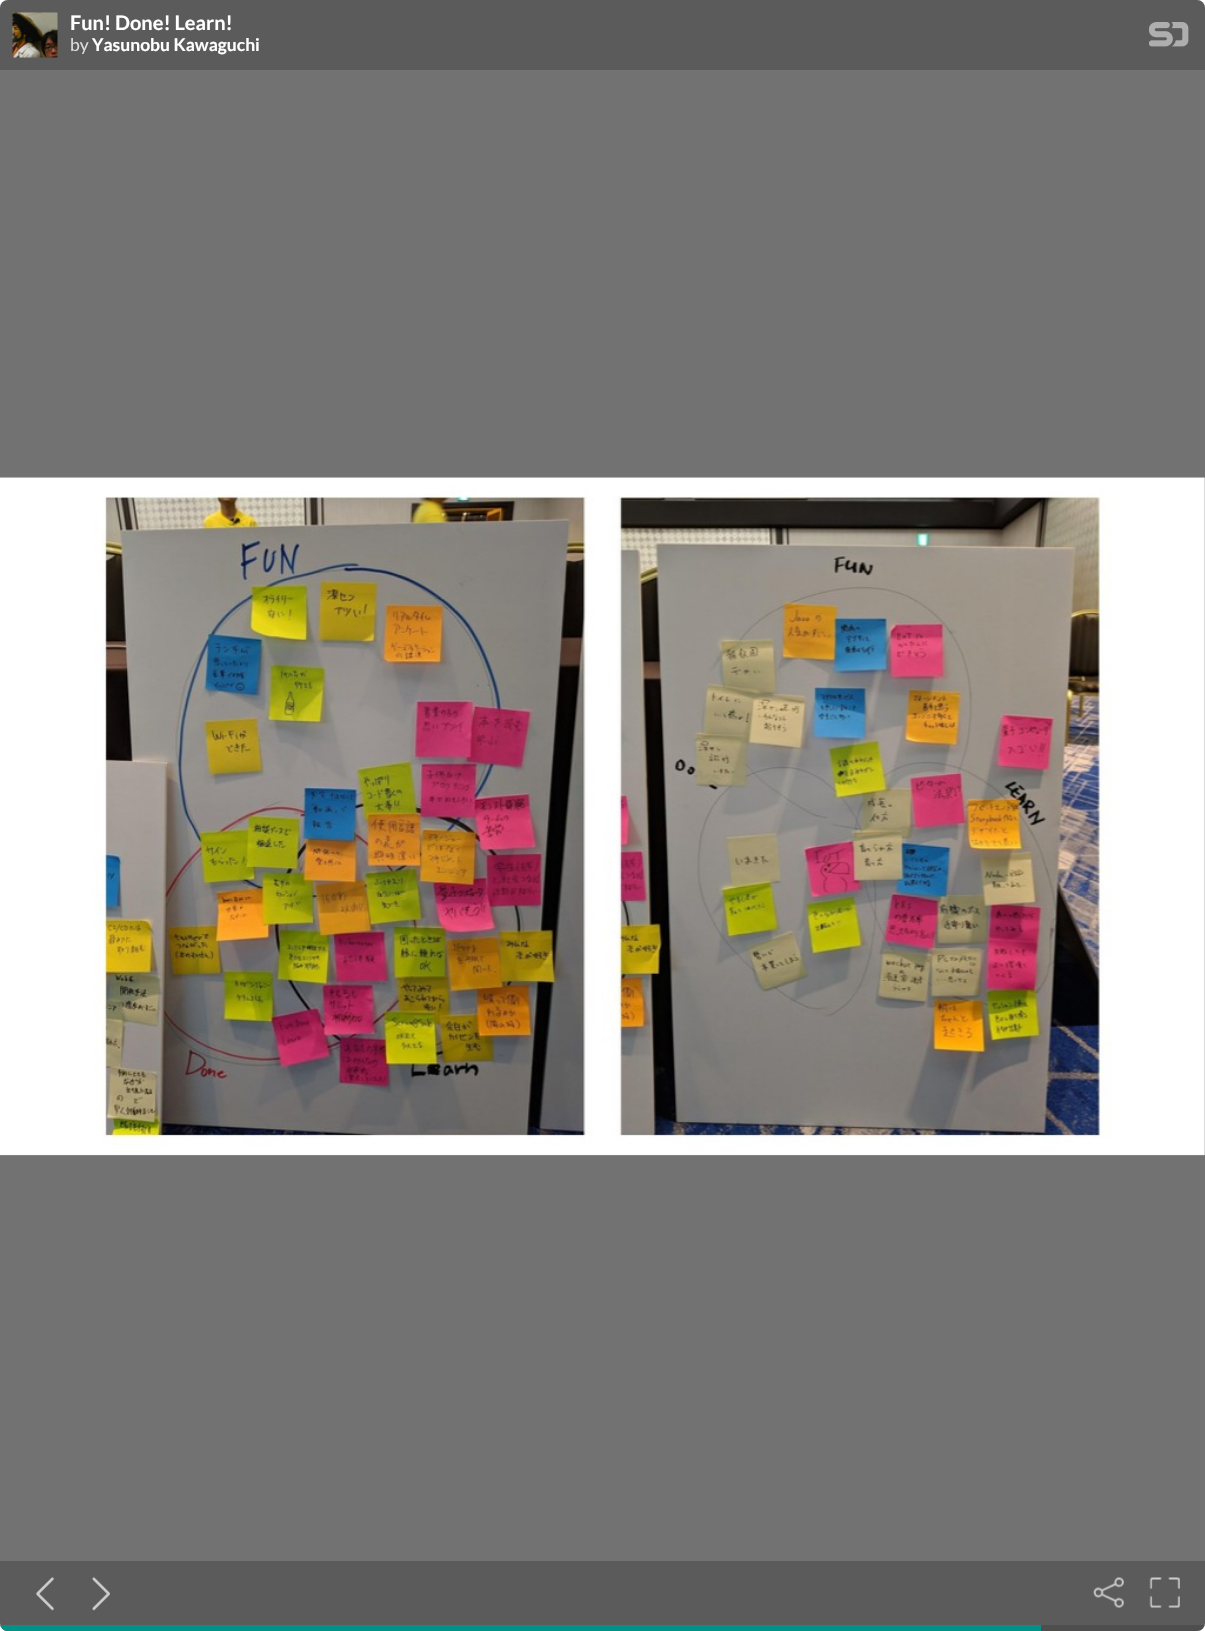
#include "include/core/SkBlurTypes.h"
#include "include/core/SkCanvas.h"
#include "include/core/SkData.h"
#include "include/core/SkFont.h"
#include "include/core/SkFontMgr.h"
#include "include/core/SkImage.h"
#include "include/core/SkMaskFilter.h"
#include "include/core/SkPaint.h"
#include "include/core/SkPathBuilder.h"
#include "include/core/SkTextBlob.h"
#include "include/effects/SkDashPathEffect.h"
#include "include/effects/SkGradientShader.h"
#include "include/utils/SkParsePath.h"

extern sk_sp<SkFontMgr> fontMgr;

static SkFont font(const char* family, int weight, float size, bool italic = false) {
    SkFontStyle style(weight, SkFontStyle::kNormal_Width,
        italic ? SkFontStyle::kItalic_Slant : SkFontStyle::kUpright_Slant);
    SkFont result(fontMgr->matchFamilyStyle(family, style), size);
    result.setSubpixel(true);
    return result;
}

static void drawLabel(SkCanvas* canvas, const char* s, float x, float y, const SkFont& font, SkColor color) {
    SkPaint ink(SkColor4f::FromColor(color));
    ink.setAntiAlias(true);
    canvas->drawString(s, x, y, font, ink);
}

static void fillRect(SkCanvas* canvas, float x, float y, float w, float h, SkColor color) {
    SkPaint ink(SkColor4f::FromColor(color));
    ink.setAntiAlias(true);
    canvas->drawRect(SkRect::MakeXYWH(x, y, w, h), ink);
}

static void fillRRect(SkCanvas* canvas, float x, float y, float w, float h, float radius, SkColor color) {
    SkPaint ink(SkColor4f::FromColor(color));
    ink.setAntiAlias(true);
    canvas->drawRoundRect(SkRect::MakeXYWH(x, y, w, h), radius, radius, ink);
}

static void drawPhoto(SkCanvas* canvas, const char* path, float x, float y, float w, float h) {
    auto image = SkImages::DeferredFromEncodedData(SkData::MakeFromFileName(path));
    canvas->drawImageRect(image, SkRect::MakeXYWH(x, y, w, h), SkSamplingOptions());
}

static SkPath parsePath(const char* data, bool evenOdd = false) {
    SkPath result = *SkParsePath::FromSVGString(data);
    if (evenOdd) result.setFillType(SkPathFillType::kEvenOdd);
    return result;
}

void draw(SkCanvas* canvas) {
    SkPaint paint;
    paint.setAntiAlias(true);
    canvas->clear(0xFFFFFFFF);
    fillRRect(canvas, 0, 0, 1205, 1631, 8, 0xFF727272);
    drawPhoto(canvas, "assets/img1.png", 0, 477, 1205, 679);
    paint.setColor(0x33000000);
    canvas->drawPath(parsePath("M8 0H1197C1201.5 0 1205 3.5 1205 8V70H0V8C0 3.5 3.5 0 8 0Z"), paint);
    drawPhoto(canvas, "assets/img2.png", 12, 12, 46, 46);
    SkFont font1 = font("Lato", 700, 20);
    drawLabel(canvas, "Fun! Done! Learn!", 70, 30, font1, 0xFFFFFFFF);
    drawPhoto(canvas, "assets/img3.png", 1149, 22, 40, 25);
    SkFont font2 = font("Lato", 400, 17.5f);
    drawLabel(canvas, "by", 70, 51, font2, 0xFFDEDEDE);
    SkFont font3 = font("Lato", 700, 17.5f);
    drawLabel(canvas, "Yasunobu Kawaguchi", 92, 51, font3, 0xFFFFFFFF);
    canvas->drawPath(parsePath("M0 1561H1205V1623C1205 1627.5 1201.5 1631 1197 1631H8C3.5 1631 0 1627.5 0 1623Z"), paint);
    drawPhoto(canvas, "assets/img4.png", 36, 1576, 18, 35);
    drawPhoto(canvas, "assets/img5.png", 92, 1576, 18, 35);
    drawPhoto(canvas, "assets/img6.png", 1093, 1577, 31, 31);
    drawPhoto(canvas, "assets/img7.png", 1149, 1577, 31, 31);
    canvas->save();
    canvas->clipPath(parsePath("M8 0H1197C1201.5 0 1205 3.5 1205 8V1623C1205 1627.5 1201.5 1631 1197 1631H8C3.5 1631 0 1627.5 0 1623V8C0 3.5 3.5 0 8 0Z"), true);
    fillRect(canvas, 0, 1625, 1205, 6, 0x26000000);
    fillRect(canvas, 0, 1625, 1041, 6, 0xFF009287);
    canvas->restore();
}
